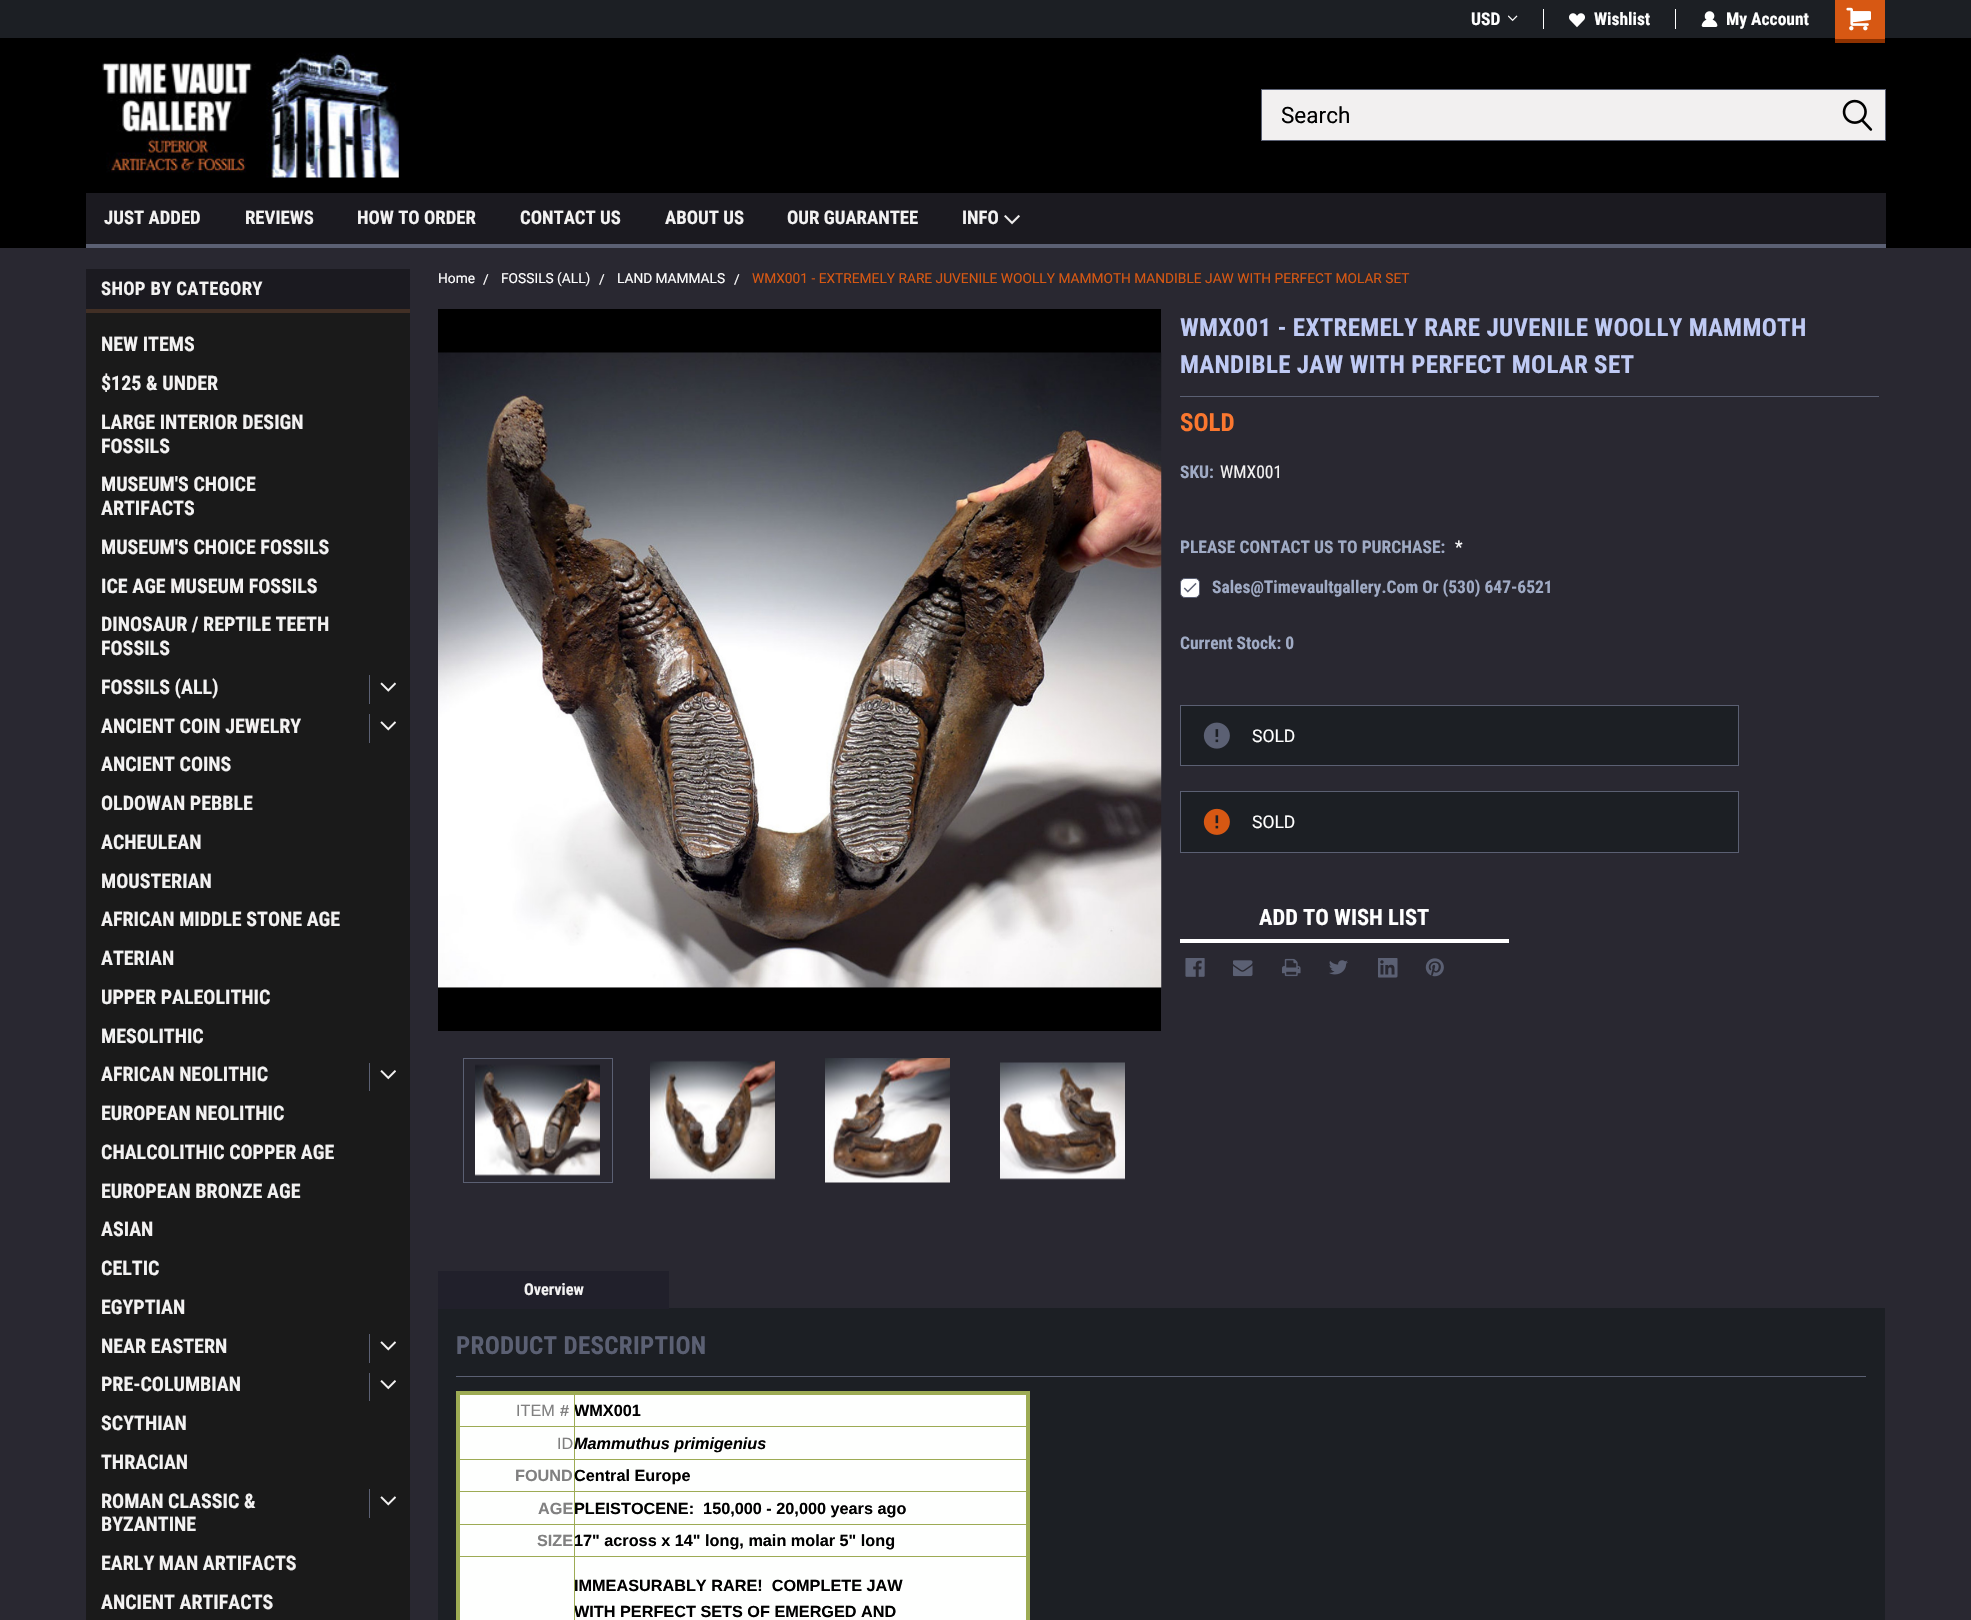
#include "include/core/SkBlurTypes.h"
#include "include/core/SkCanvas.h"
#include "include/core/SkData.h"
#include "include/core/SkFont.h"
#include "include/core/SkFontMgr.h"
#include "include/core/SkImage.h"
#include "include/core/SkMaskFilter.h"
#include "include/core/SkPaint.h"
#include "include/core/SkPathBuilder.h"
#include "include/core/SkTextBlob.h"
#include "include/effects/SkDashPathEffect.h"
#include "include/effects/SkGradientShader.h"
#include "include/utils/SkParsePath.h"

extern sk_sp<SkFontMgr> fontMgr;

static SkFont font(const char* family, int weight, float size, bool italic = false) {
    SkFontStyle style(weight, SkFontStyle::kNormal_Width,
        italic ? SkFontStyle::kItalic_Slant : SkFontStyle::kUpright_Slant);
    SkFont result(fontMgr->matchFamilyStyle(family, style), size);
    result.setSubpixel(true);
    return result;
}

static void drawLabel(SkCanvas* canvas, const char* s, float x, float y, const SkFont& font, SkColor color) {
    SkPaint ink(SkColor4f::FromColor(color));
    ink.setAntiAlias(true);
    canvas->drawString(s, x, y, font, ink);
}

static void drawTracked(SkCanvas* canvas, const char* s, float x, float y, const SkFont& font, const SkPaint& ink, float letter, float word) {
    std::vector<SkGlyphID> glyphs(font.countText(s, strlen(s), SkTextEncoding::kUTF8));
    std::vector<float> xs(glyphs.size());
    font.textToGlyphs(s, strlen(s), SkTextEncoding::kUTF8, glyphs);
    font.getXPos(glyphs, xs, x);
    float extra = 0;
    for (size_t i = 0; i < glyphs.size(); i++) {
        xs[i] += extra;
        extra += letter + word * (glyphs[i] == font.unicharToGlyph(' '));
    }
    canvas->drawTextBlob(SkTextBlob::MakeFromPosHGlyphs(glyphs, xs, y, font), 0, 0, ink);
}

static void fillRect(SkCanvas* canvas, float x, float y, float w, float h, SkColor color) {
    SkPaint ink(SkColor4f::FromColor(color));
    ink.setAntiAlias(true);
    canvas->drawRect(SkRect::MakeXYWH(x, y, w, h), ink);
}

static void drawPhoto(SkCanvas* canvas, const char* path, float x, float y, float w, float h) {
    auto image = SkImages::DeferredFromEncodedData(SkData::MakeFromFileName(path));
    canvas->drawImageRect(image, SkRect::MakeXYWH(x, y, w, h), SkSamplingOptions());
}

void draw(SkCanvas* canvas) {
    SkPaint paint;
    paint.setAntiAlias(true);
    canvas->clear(0xFF292831);
    fillRect(canvas, 0, 38, 1971, 210, 0xFF000000);
    fillRect(canvas, 0, 0, 1971, 38, 0xFF1C1F24);
    fillRect(canvas, 1543, 9, 1, 20, 0xFFFFFFFF);
    SkFont font1 = font("Roboto Condensed", 700, 17.5f);
    drawLabel(canvas, "USD", 1471, 25, font1, 0xFFFFFFFF);
    drawPhoto(canvas, "assets/img1.png", 1508, 15, 10, 7);
    fillRect(canvas, 1675, 9, 1, 20, 0xFFFFFFFF);
    drawPhoto(canvas, "assets/img2.png", 1569, 13, 16, 15);
    drawLabel(canvas, "Wishlist", 1594, 25, font1, 0xFFFFFFFF);
    drawPhoto(canvas, "assets/img3.png", 1701, 11, 17, 16);
    drawLabel(canvas, "My Account", 1726, 25, font1, 0xFFFFFFFF);
    fillRect(canvas, 1835, 0, 50, 39, 0xFFD75813);
    fillRect(canvas, 1835, 39, 50, 4, 0xFF8F3200);
    drawPhoto(canvas, "assets/img4.png", 1846, 7, 25, 24);
    drawPhoto(canvas, "assets/img5.png", 102, 52, 297, 126);
    paint.setColor(0xFFF2F0F0);
    canvas->drawRect(SkRect::MakeXYWH(1261.5f, 89.5f, 624, 51), paint);
    paint.setStroke(true);
    paint.setStrokeWidth(1);
    paint.setColor(0xFF5B6073);
    canvas->drawRect(SkRect::MakeXYWH(1261.5f, 89.5f, 624, 51), paint);
    SkFont font2 = font("Roboto", 400, 22.5f);
    drawLabel(canvas, "Search", 1281, 123, font2, 0xFF000000);
    drawPhoto(canvas, "assets/img6.png", 1842, 99, 31, 32);
    fillRect(canvas, 86, 193, 1800, 51, 0xFF1B1A20);
    fillRect(canvas, 86, 244, 1800, 4, 0xFF5B6073);
    SkFont font3 = font("Roboto Condensed", 700, 18.75f);
    drawLabel(canvas, "JUST ADDED", 104, 224, font3, 0xFFF3F2F2);
    drawLabel(canvas, "REVIEWS", 245, 224, font3, 0xFFF3F2F2);
    drawLabel(canvas, "HOW TO ORDER", 357, 224, font3, 0xFFF3F2F2);
    drawLabel(canvas, "CONTACT US", 520, 224, font3, 0xFFF3F2F2);
    drawLabel(canvas, "ABOUT US", 665, 224, font3, 0xFFF3F2F2);
    drawLabel(canvas, "OUR GUARANTEE", 787, 224, font3, 0xFFF3F2F2);
    drawLabel(canvas, "INFO", 962, 224, font3, 0xFFF3F2F2);
    drawPhoto(canvas, "assets/img7.png", 1004, 215, 16, 10);
    fillRect(canvas, 86, 269, 324, 40, 0xFF1B1A20);
    fillRect(canvas, 86, 309, 329, 4, 0xFF412F25);
    paint.setStroke(false);
    paint.setColor(0xFFF3F2F2);
    drawTracked(canvas, "SHOP BY CATEGORY", 101, 295, font3, paint, 0.3f, 0);
    fillRect(canvas, 86, 313, 324, 1307, 0xFF1A1A1A);
    SkFont font4 = font("Roboto Condensed", 700, 20);
    drawLabel(canvas, "NEW ITEMS", 101, 351, font4, 0xFFF3F2F2);
    drawLabel(canvas, "$125 & UNDER", 101, 390, font4, 0xFFF3F2F2);
    drawLabel(canvas, "LARGE INTERIOR DESIGN", 101, 429, font4, 0xFFF3F2F2);
    drawLabel(canvas, "FOSSILS", 101, 453, font4, 0xFFF3F2F2);
    drawLabel(canvas, "MUSEUM'S CHOICE", 101, 491, font4, 0xFFF3F2F2);
    drawLabel(canvas, "ARTIFACTS", 101, 515, font4, 0xFFF3F2F2);
    drawLabel(canvas, "MUSEUM'S CHOICE FOSSILS", 101, 554, font4, 0xFFF3F2F2);
    drawLabel(canvas, "ICE AGE MUSEUM FOSSILS", 101, 593, font4, 0xFFF3F2F2);
    drawLabel(canvas, "DINOSAUR / REPTILE TEETH", 101, 631, font4, 0xFFF3F2F2);
    drawLabel(canvas, "FOSSILS", 101, 655, font4, 0xFFF3F2F2);
    drawLabel(canvas, "FOSSILS (ALL)", 101, 694, font4, 0xFFF3F2F2);
    fillRect(canvas, 369, 675, 1, 29, 0xFF5B6073);
    drawPhoto(canvas, "assets/img8.png", 380, 682, 16, 10);
    drawLabel(canvas, "ANCIENT COIN JEWELRY", 101, 733, font4, 0xFFF3F2F2);
    fillRect(canvas, 369, 714, 1, 29, 0xFF5B6073);
    drawPhoto(canvas, "assets/img9.png", 380, 721, 16, 10);
    drawLabel(canvas, "ANCIENT COINS", 101, 771, font4, 0xFFF3F2F2);
    drawLabel(canvas, "OLDOWAN PEBBLE", 101, 810, font4, 0xFFF3F2F2);
    drawLabel(canvas, "ACHEULEAN", 101, 849, font4, 0xFFF3F2F2);
    drawLabel(canvas, "MOUSTERIAN", 101, 888, font4, 0xFFF3F2F2);
    drawLabel(canvas, "AFRICAN MIDDLE STONE AGE", 101, 926, font4, 0xFFF3F2F2);
    drawLabel(canvas, "ATERIAN", 101, 965, font4, 0xFFF3F2F2);
    drawLabel(canvas, "UPPER PALEOLITHIC", 101, 1004, font4, 0xFFF3F2F2);
    drawLabel(canvas, "MESOLITHIC", 101, 1043, font4, 0xFFF3F2F2);
    drawLabel(canvas, "AFRICAN NEOLITHIC", 101, 1081, font4, 0xFFF3F2F2);
    fillRect(canvas, 369, 1063, 1, 28, 0xFF5B6073);
    drawPhoto(canvas, "assets/img10.png", 380, 1070, 16, 10);
    drawLabel(canvas, "EUROPEAN NEOLITHIC", 101, 1120, font4, 0xFFF3F2F2);
    drawLabel(canvas, "CHALCOLITHIC COPPER AGE", 101, 1159, font4, 0xFFF3F2F2);
    drawLabel(canvas, "EUROPEAN BRONZE AGE", 101, 1198, font4, 0xFFF3F2F2);
    drawLabel(canvas, "ASIAN", 101, 1236, font4, 0xFFF3F2F2);
    drawLabel(canvas, "CELTIC", 101, 1275, font4, 0xFFF3F2F2);
    drawLabel(canvas, "EGYPTIAN", 101, 1314, font4, 0xFFF3F2F2);
    drawLabel(canvas, "NEAR EASTERN", 101, 1353, font4, 0xFFF3F2F2);
    fillRect(canvas, 369, 1334, 1, 29, 0xFF5B6073);
    drawPhoto(canvas, "assets/img9.png", 380, 1341, 16, 10);
    drawLabel(canvas, "PRE-COLUMBIAN", 101, 1391, font4, 0xFFF3F2F2);
    fillRect(canvas, 369, 1373, 1, 28, 0xFF5B6073);
    drawPhoto(canvas, "assets/img10.png", 380, 1380, 16, 10);
    drawLabel(canvas, "SCYTHIAN", 101, 1430, font4, 0xFFF3F2F2);
    drawLabel(canvas, "THRACIAN", 101, 1469, font4, 0xFFF3F2F2);
    drawLabel(canvas, "ROMAN CLASSIC &", 101, 1508, font4, 0xFFF3F2F2);
    drawLabel(canvas, "BYZANTINE", 101, 1531, font4, 0xFFF3F2F2);
    fillRect(canvas, 369, 1489, 1, 29, 0xFF5B6073);
    drawPhoto(canvas, "assets/img9.png", 380, 1496, 16, 10);
    drawLabel(canvas, "EARLY MAN ARTIFACTS", 101, 1570, font4, 0xFFF3F2F2);
    drawLabel(canvas, "ANCIENT ARTIFACTS", 101, 1609, font4, 0xFFF3F2F2);
    fillRect(canvas, 410, 309, 5, 4, 0xFF292831);
    SkFont font5 = font("Roboto", 400, 13.75f);
    drawLabel(canvas, "Home", 438, 283, font5, 0xFFFFFFFF);
    drawLabel(canvas, "/", 483, 284, font5, 0xFFFFFFFF);
    drawLabel(canvas, "FOSSILS (ALL)", 501, 283, font5, 0xFFFFFFFF);
    drawLabel(canvas, "/", 599, 284, font5, 0xFFFFFFFF);
    drawLabel(canvas, "LAND MAMMALS", 617, 283, font5, 0xFFFFFFFF);
    drawLabel(canvas, "/", 734, 284, font5, 0xFFFFFFFF);
    drawLabel(canvas, "WMX001 - EXTREMELY RARE JUVENILE WOOLLY MAMMOTH MANDIBLE JAW WITH PERFECT MOLAR SET", 752, 283, font5, 0xFFD75813);
    fillRect(canvas, 438, 309, 723, 722, 0xFF000000);
    drawPhoto(canvas, "assets/img11.png", 438, 352, 724, 636);
    paint.setStroke(true);
    paint.setColor(0xFF5B6073);
    canvas->drawRect(SkRect::MakeXYWH(463.5f, 1058.5f, 149, 124), paint);
    drawPhoto(canvas, "assets/img12.png", 475, 1064, 125, 112);
    drawPhoto(canvas, "assets/img13.png", 650, 1060, 125, 120);
    drawPhoto(canvas, "assets/img14.png", 825, 1058, 125, 125);
    drawPhoto(canvas, "assets/img15.png", 1000, 1062, 125, 118);
    fillRect(canvas, 1180, 396, 699, 1, 0xFF5B6073);
    SkFont font6 = font("Roboto Condensed", 700, 25);
    paint.setStroke(false);
    paint.setColor(0xFFBFCAF4);
    drawTracked(canvas, "WMX001 - EXTREMELY RARE JUVENILE WOOLLY MAMMOTH", 1180, 336, font6, paint, 0.3f, 0);
    drawTracked(canvas, "MANDIBLE JAW WITH PERFECT MOLAR SET", 1180, 373, font6, paint, 0.3f, 0);
    drawLabel(canvas, "SOLD", 1180, 431, font6, 0xFFFA772F);
    drawLabel(canvas, "SKU:", 1180, 478, font1, 0xFFA0ABC5);
    SkFont font7 = font("Roboto Condensed", 400, 17.5f);
    drawLabel(canvas, "WMX001", 1220, 478, font7, 0xFFF3F2F2);
    drawLabel(canvas, "PLEASE CONTACT US TO PURCHASE:", 1180, 553, font1, 0xFFA0ABC5);
    drawLabel(canvas, "*", 1455, 553, font7, 0xFFFFFFFF);
    paint.setColor(0xFFFFFFFF);
    canvas->drawRoundRect(SkRect::MakeXYWH(1180.5f, 578.5f, 19, 19), 4.5f, 4.5f, paint);
    paint.setStroke(true);
    paint.setColor(0xFF5B6073);
    canvas->drawRoundRect(SkRect::MakeXYWH(1180.5f, 578.5f, 19, 19), 4.5f, 4.5f, paint);
    drawLabel(canvas, "Sales@Timevaultgallery.Com Or (530) 647-6521", 1212, 593, font1, 0xFFA0ABC5);
    drawPhoto(canvas, "assets/img16.png", 1183, 582, 14, 11);
    drawLabel(canvas, "Current Stock: 0", 1180, 649, font1, 0xFFA0ABC5);
    paint.setStroke(false);
    paint.setColor(0xFF1C1F24);
    canvas->drawRect(SkRect::MakeXYWH(1180.5f, 705.5f, 558, 60), paint);
    paint.setStroke(true);
    paint.setColor(0xFF5B6073);
    canvas->drawRect(SkRect::MakeXYWH(1180.5f, 705.5f, 558, 60), paint);
    drawPhoto(canvas, "assets/img17.png", 1203, 722, 27, 27);
    SkFont font8 = font("Roboto", 400, 17.5f);
    drawLabel(canvas, "SOLD", 1252, 742, font8, 0xFFFFFFFF);
    paint.setStroke(false);
    paint.setColor(0xFF1C1F24);
    canvas->drawRect(SkRect::MakeXYWH(1180.5f, 791.5f, 558, 61), paint);
    paint.setStroke(true);
    paint.setColor(0xFF5B6073);
    canvas->drawRect(SkRect::MakeXYWH(1180.5f, 791.5f, 558, 61), paint);
    drawPhoto(canvas, "assets/img18.png", 1203, 808, 27, 27);
    drawLabel(canvas, "SOLD", 1252, 828, font8, 0xFFFFFFFF);
    fillRect(canvas, 1180, 939, 329, 4, 0xFFFFFFFF);
    SkFont font9 = font("Roboto Condensed", 700, 22.5f);
    drawLabel(canvas, "ADD TO WISH LIST", 1259, 925, font9, 0xFFFFFFFF);
    drawPhoto(canvas, "assets/img19.png", 1185, 958, 20, 19);
    drawPhoto(canvas, "assets/img20.png", 1233, 960, 20, 17);
    drawPhoto(canvas, "assets/img21.png", 1282, 958, 19, 19);
    drawPhoto(canvas, "assets/img22.png", 1329, 960, 19, 15);
    drawPhoto(canvas, "assets/img23.png", 1378, 958, 20, 20);
    drawPhoto(canvas, "assets/img24.png", 1425, 958, 19, 19);
    fillRect(canvas, 438, 1308, 1447, 312, 0xFF1C1F24);
    fillRect(canvas, 438, 1271, 231, 38, 0xFF21202B);
    SkFont font10 = font("Roboto Condensed", 700, 16.25f);
    drawLabel(canvas, "Overview", 524, 1295, font10, 0xFFF3F2F2);
    fillRect(canvas, 456, 1376, 1410, 1, 0xFF5B6073);
    paint.setStroke(false);
    drawTracked(canvas, "PRODUCT DESCRIPTION", 456, 1354, font6, paint, 0.3f, 0);
    fillRect(canvas, 460, 1395, 566, 225, 0xFFFEFFFE);
    fillRect(canvas, 574, 1426, 455, 1, 0xFF9DAB54);
    fillRect(canvas, 574, 1459, 455, 1, 0xFF9DAB54);
    fillRect(canvas, 574, 1491, 455, 1, 0xFF9DAB54);
    fillRect(canvas, 574, 1524, 455, 1, 0xFF9DAB54);
    fillRect(canvas, 574, 1556, 455, 1, 0xFF9DAB54);
    fillRect(canvas, 574, 1556, 1, 64, 0xFF9DAB54);
    fillRect(canvas, 458, 1556, 117, 1, 0xFF9DAB54);
    fillRect(canvas, 574, 1524, 1, 34, 0xFF9DAB54);
    fillRect(canvas, 458, 1524, 117, 1, 0xFF9DAB54);
    fillRect(canvas, 574, 1491, 1, 34, 0xFF9DAB54);
    fillRect(canvas, 458, 1491, 117, 1, 0xFF9DAB54);
    fillRect(canvas, 574, 1459, 1, 34, 0xFF9DAB54);
    fillRect(canvas, 458, 1459, 117, 1, 0xFF9DAB54);
    fillRect(canvas, 574, 1426, 1, 34, 0xFF9DAB54);
    fillRect(canvas, 458, 1426, 117, 1, 0xFF9DAB54);
    fillRect(canvas, 574, 1393, 1, 35, 0xFF9DAB54);
    fillRect(canvas, 456, 1391, 574, 4, 0xFF9DAB54);
    fillRect(canvas, 1026, 1391, 4, 229, 0xFF9DAB54);
    fillRect(canvas, 456, 1391, 4, 229, 0xFF9DAB54);
    SkFont font11 = font("Liberation Sans", 400, 16.25f);
    drawLabel(canvas, "ITEM", 516, 1416, font11, 0xFF808080);
    SkFont font12 = font("Liberation Sans", 700, 16.25f);
    drawLabel(canvas, "#", 560, 1416, font12, 0xFF808080);
    canvas->save();
    canvas->clipRect(SkRect::MakeXYWH(575, 1398, 451, 26));
    drawLabel(canvas, "WMX001", 574, 1416, font12, 0xFF000000);
    canvas->restore();
    drawLabel(canvas, "ID", 557, 1449, font11, 0xFF808080);
    SkFont font13 = font("Liberation Sans", 700, 16.25f, true);
    drawLabel(canvas, "Mammuthus primigenius", 574, 1449, font13, 0xFF000000);
    drawLabel(canvas, "FOUND", 515, 1481, font12, 0xFF808080);
    drawLabel(canvas, "Central Europe", 574, 1481, font12, 0xFF000000);
    drawLabel(canvas, "AGE", 538, 1514, font12, 0xFF808080);
    drawLabel(canvas, "PLEISTOCENE:  150,000 - 20,000 years ago", 574, 1514, font12, 0xFF000000);
    drawLabel(canvas, "SIZE", 537, 1546, font12, 0xFF808080);
    drawLabel(canvas, "17\" across x 14\" long, main molar 5\" long", 574, 1546, font12, 0xFF000000);
    drawLabel(canvas, "IMMEASURABLY RARE!  COMPLETE JAW", 574, 1591, font12, 0xFF000000);
    canvas->save();
    canvas->clipRect(SkRect::MakeXYWH(575, 1573, 451, 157));
    drawLabel(canvas, "WITH PERFECT SETS OF EMERGED AND", 574, 1617, font12, 0xFF000000);
    canvas->restore();
}
